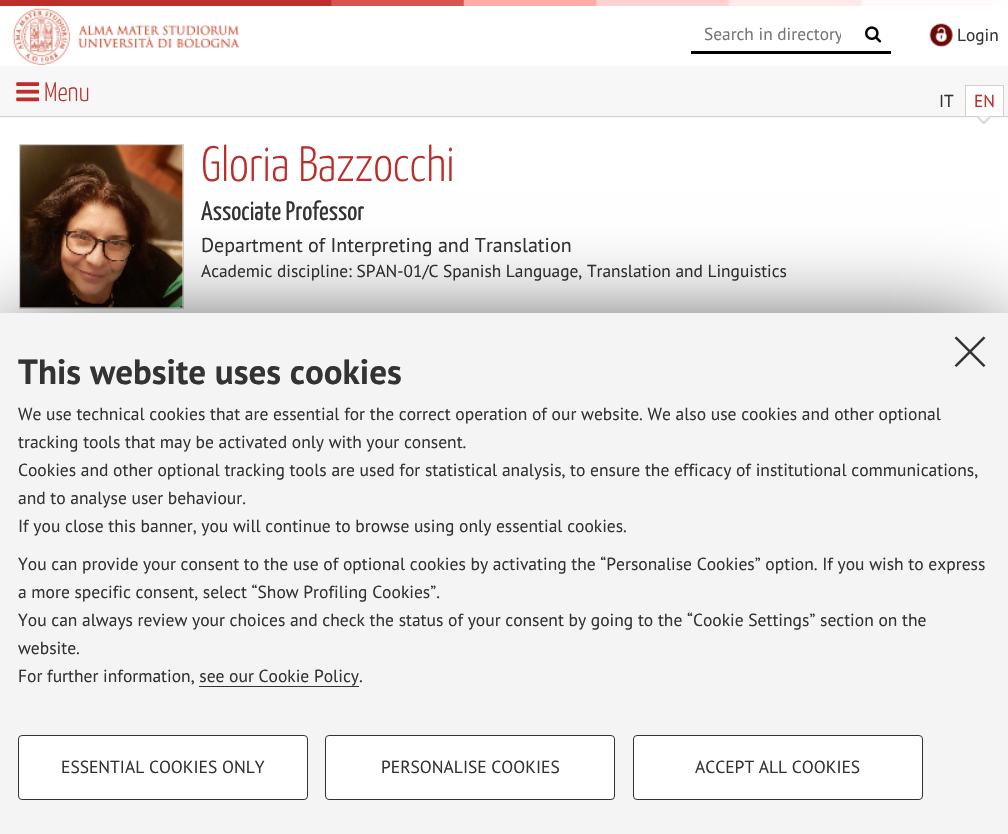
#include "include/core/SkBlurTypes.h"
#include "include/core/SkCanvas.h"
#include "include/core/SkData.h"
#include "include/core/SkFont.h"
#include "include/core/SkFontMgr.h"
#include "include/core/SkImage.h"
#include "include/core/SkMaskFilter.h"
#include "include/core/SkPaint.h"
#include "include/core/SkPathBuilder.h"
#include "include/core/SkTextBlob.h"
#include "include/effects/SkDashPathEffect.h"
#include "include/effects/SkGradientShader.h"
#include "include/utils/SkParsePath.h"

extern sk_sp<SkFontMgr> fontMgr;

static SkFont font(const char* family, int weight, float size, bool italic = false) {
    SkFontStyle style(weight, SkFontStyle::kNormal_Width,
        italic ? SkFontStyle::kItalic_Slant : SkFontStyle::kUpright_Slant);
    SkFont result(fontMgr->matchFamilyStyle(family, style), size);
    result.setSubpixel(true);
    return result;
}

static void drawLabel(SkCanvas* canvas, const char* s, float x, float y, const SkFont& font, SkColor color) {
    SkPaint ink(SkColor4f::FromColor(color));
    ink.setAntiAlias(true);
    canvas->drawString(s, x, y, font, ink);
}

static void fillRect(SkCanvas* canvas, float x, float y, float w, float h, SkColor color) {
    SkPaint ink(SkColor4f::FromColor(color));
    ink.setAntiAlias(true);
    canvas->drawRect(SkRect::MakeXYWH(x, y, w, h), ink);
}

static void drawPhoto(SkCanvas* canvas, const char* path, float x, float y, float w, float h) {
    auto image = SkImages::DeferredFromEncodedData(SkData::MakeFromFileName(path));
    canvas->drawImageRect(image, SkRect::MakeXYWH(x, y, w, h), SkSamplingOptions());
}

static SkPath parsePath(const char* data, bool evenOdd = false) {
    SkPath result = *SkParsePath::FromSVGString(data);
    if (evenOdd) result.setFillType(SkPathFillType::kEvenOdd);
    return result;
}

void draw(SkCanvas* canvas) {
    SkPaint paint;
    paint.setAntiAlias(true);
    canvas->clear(0xFFFFFFFF);
    drawPhoto(canvas, "assets/img1.png", 0, 0, 1008, 6);
    drawPhoto(canvas, "assets/img2.png", 12, 7, 228, 59);
    fillRect(canvas, 691, 51, 200, 3, 0xFF000000);
    canvas->save();
    canvas->clipRect(SkRect::MakeXYWH(704, 23, 137, 22));
    SkFont font1 = font("PT Sans", 400, 17.35f);
    drawLabel(canvas, "Search in directory", 704, 40, font1, 0xFF757575);
    canvas->restore();
    drawPhoto(canvas, "assets/img3.png", 865, 26, 17, 17);
    drawPhoto(canvas, "assets/img4.png", 929, 23, 24, 24);
    drawLabel(canvas, "Login", 957, 41, font1, 0xFF333333);
    fillRect(canvas, 0, 66, 1008, 52, 0xFFF7F7F7);
    fillRect(canvas, 0, 116, 1008, 1, 0xFFD0D0D0);
    drawPhoto(canvas, "assets/img5.png", 16, 82, 24, 20);
    SkFont font2 = font("Yanone Kaffeesatz", 300, 26.75f);
    drawLabel(canvas, "Menu", 44, 101, font2, 0xFFBB2E29);
    drawLabel(canvas, "IT", 939, 107, font1, 0xFF333333);
    fillRect(canvas, 966, 86, 37, 30, 0xFFFFFFFF);
    fillRect(canvas, 965, 85, 39, 1, 0xFFD0D0D0);
    fillRect(canvas, 1003, 85, 1, 31, 0xFFD0D0D0);
    fillRect(canvas, 965, 85, 1, 31, 0xFFD0D0D0);
    drawLabel(canvas, "EN", 974, 107, font1, 0xFFBB2E29);
    drawPhoto(canvas, "assets/img6.png", 977, 115, 14, 9);
    paint.setStroke(true);
    paint.setStrokeWidth(1);
    paint.setColor(0xFFD0D0D0);
    canvas->drawRect(SkRect::MakeXYWH(19.5f, 144.5f, 164, 164), paint);
    drawPhoto(canvas, "assets/img7.png", 19, 144, 164, 164);
    SkFont font3 = font("Yanone Kaffeesatz", 300, 49.5f);
    drawLabel(canvas, "Gloria Bazzocchi", 201, 181, font3, 0xFFBB2E29);
    SkFont font4 = font("Yanone Kaffeesatz", 400, 26.75f);
    drawLabel(canvas, "Associate Professor", 201, 220, font4, 0xFF333333);
    SkFont font5 = font("PT Sans", 400, 20);
    drawLabel(canvas, "Department of Interpreting and Translation", 201, 252, font5, 0xFF333333);
    drawLabel(canvas, "Academic discipline: SPAN-01/C Spanish Language, Translation and Linguistics", 201, 277, font1, 0xFF333333);
    paint.setStroke(false);
    paint.setColor(0xFF000000);
    paint.setMaskFilter(SkMaskFilter::MakeBlur(kNormal_SkBlurStyle, 50));
    canvas->drawRect(SkRect::MakeXYWH(10, 343, 989, 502), paint);
    paint.setMaskFilter(nullptr);
    fillRect(canvas, 0, 313, 1008, 521, 0xFFF4F4F4);
    paint.setColor(0xFF333333);
    canvas->drawPath(parsePath("M983.5 336.5L985.5 338L956.5 367L954.5 365.5Z"), paint);
    canvas->drawPath(parsePath("M954.5 338L956.5 336.5L985.5 365.5L983.5 367Z"), paint);
    canvas->save();
    canvas->clipRect(SkRect::MakeXYWH(18, 344, 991, 356));
    SkFont font6 = font("PT Sans", 700, 35);
    drawLabel(canvas, "This website uses cookies", 18, 384, font6, 0xFF333333);
    canvas->restore();
    SkFont font7 = font("PT Sans", 400, 17.5f);
    drawLabel(canvas, "We use technical cookies that are essential for the correct operation of our website. We also use cookies and other optional", 18, 420, font7, 0xFF333333);
    drawLabel(canvas, "tracking tools that may be activated only with your consent.", 18, 448, font7, 0xFF333333);
    drawLabel(canvas, "Cookies and other optional tracking tools are used for statistical analysis, to ensure the efficacy of institutional communications,", 18, 476, font7, 0xFF333333);
    drawLabel(canvas, "and to analyse user behaviour.", 18, 504, font7, 0xFF333333);
    drawLabel(canvas, "If you close this banner, you will continue to browse using only essential cookies.", 18, 532, font7, 0xFF333333);
    drawLabel(canvas, "You can provide your consent to the use of optional cookies by activating the “Personalise Cookies” option. If you wish to express", 18, 570, font7, 0xFF333333);
    drawLabel(canvas, "a more specific consent, select “Show Profiling Cookies”.", 18, 598, font7, 0xFF333333);
    drawLabel(canvas, "You can always review your choices and check the status of your consent by going to the “Cookie Settings” section on the", 18, 626, font7, 0xFF333333);
    drawLabel(canvas, "website.", 18, 654, font7, 0xFF333333);
    drawLabel(canvas, "For further information, see our Cookie Policy.", 18, 682, font7, 0xFF333333);
    fillRect(canvas, 199, 686, 160, 1, 0xFF333333);
    paint.setColor(0xFFFFFFFF);
    canvas->drawRoundRect(SkRect::MakeXYWH(18.5f, 735.5f, 289, 64), 3.5f, 3.5f, paint);
    paint.setStroke(true);
    paint.setColor(0xFF333333);
    canvas->drawRoundRect(SkRect::MakeXYWH(18.5f, 735.5f, 289, 64), 3.5f, 3.5f, paint);
    drawLabel(canvas, "ESSENTIAL COOKIES ONLY", 61, 773, font7, 0xFF333333);
    paint.setStroke(false);
    paint.setColor(0xFFFFFFFF);
    canvas->drawRoundRect(SkRect::MakeXYWH(325.5f, 735.5f, 289, 64), 3.5f, 3.5f, paint);
    paint.setStroke(true);
    paint.setColor(0xFF333333);
    canvas->drawRoundRect(SkRect::MakeXYWH(325.5f, 735.5f, 289, 64), 3.5f, 3.5f, paint);
    drawLabel(canvas, "PERSONALISE COOKIES", 381, 773, font7, 0xFF333333);
    paint.setStroke(false);
    paint.setColor(0xFFFFFFFF);
    canvas->drawRoundRect(SkRect::MakeXYWH(633.5f, 735.5f, 289, 64), 3.5f, 3.5f, paint);
    paint.setStroke(true);
    paint.setColor(0xFF333333);
    canvas->drawRoundRect(SkRect::MakeXYWH(633.5f, 735.5f, 289, 64), 3.5f, 3.5f, paint);
    drawLabel(canvas, "ACCEPT ALL COOKIES", 695, 773, font7, 0xFF333333);
}
